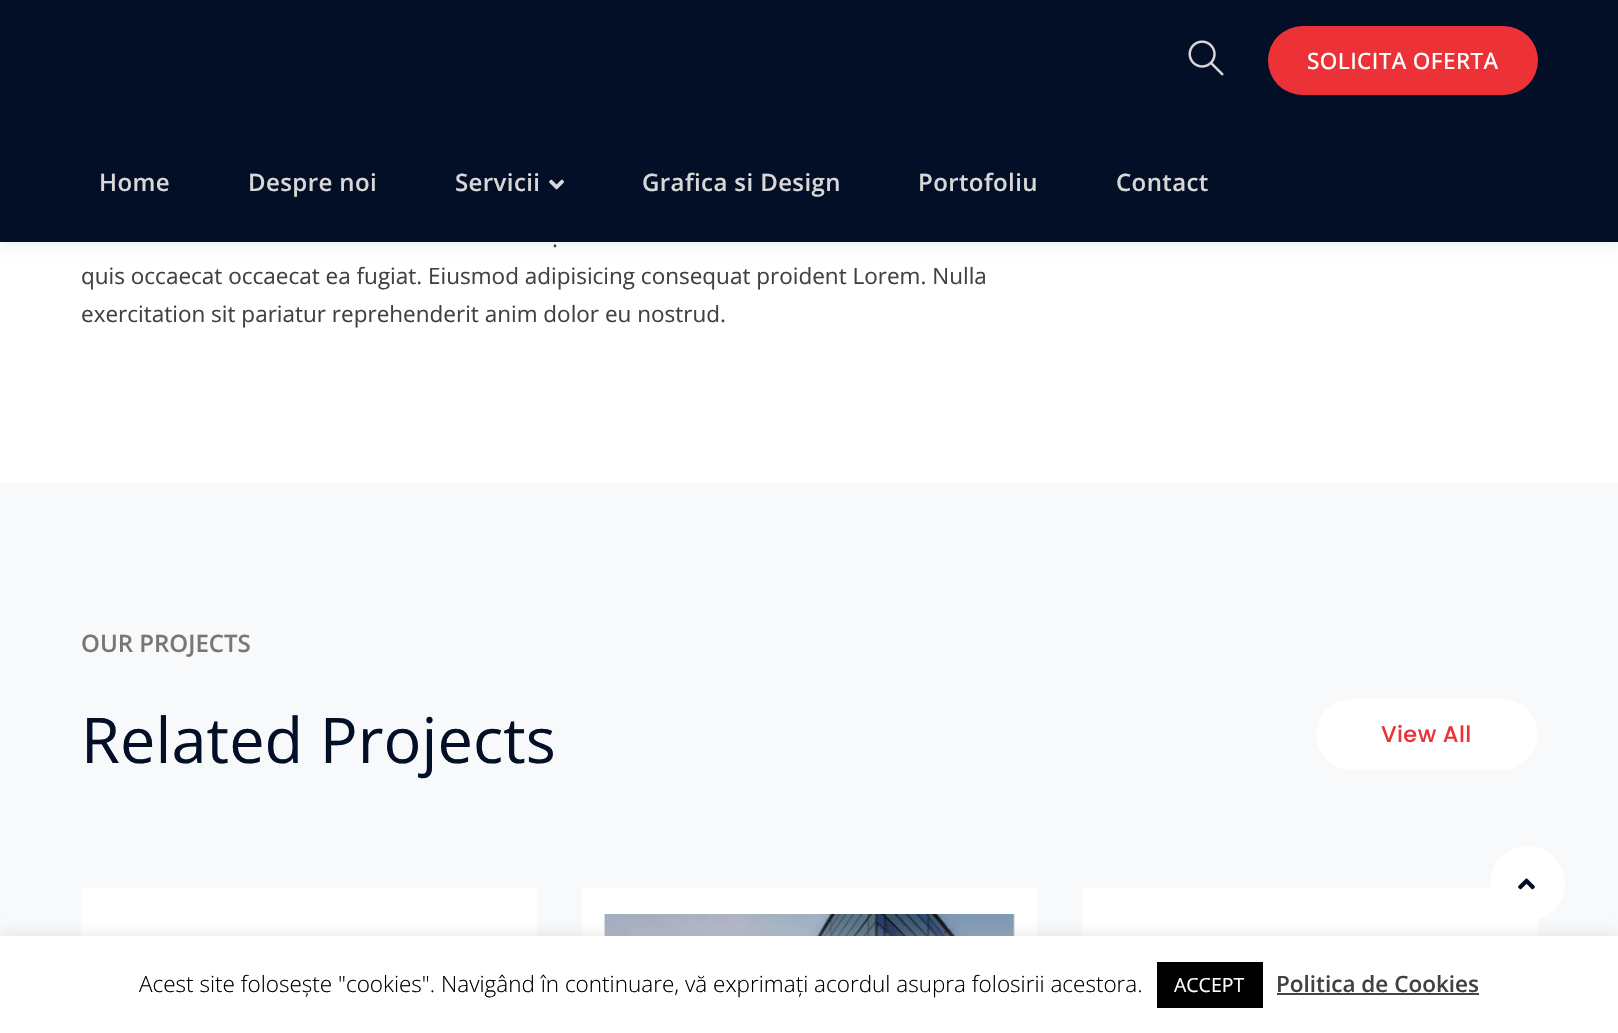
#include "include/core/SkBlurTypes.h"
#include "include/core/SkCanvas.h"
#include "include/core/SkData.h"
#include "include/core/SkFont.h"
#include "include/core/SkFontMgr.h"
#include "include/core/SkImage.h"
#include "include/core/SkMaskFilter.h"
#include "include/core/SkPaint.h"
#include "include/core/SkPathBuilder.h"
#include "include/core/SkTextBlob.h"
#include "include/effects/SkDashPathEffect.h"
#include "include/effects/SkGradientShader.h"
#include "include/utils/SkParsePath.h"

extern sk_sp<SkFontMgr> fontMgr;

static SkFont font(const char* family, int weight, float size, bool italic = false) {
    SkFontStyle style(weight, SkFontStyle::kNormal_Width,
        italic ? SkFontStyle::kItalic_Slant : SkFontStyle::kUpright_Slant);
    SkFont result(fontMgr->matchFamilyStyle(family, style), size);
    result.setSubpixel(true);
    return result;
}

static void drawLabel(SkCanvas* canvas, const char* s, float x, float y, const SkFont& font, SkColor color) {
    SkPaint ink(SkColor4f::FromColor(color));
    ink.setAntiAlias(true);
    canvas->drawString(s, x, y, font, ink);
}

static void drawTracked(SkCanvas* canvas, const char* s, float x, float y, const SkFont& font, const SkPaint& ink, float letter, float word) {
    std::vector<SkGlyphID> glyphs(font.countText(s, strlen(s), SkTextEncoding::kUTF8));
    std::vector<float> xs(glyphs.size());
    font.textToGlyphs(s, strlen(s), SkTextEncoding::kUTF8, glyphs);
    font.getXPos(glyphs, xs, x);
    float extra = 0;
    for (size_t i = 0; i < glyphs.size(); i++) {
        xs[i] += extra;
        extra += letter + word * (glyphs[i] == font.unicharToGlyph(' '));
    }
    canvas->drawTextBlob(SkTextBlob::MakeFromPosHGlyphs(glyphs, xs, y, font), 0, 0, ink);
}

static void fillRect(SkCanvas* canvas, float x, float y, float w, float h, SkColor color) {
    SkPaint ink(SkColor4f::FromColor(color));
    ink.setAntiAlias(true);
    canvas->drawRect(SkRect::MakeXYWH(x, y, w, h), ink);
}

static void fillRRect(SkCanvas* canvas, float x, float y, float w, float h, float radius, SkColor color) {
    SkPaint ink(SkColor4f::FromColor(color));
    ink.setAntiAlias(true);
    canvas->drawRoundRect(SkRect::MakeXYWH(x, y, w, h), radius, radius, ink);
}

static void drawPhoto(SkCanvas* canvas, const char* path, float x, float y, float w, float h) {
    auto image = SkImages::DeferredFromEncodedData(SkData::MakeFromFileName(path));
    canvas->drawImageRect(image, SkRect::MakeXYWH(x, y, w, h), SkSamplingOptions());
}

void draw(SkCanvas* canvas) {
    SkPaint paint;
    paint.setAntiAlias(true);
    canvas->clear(0xFFFFFFFF);
    paint.setColor(0x1A000000);
    paint.setMaskFilter(SkMaskFilter::MakeBlur(kNormal_SkBlurStyle, 7.5f));
    canvas->drawRect(SkRect::MakeXYWH(0, 0, 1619, 242), paint);
    paint.setMaskFilter(nullptr);
    fillRect(canvas, 0, 0, 1618, 242, 0xFF030F27);
    drawPhoto(canvas, "assets/img1.png", 1188, 40, 36, 36);
    fillRRect(canvas, 1268, 26, 270, 69, 34.5f, 0xFFED3237);
    SkFont font1 = font("Open Sans", 500, 22.5f);
    paint.setColor(0xFFFFFFFF);
    drawTracked(canvas, "SOLICITA OFERTA", 1307, 69, font1, paint, 0.4f, 0);
    SkFont font2 = font("Open Sans", 600, 24);
    paint.setColor(0xFFD7D7D7);
    drawTracked(canvas, "Home", 99, 191, font2, paint, 0.4f, 0);
    drawTracked(canvas, "Despre noi", 248, 191, font2, paint, 0.4f, 0);
    drawTracked(canvas, "Servicii", 455, 191, font2, paint, 0.4f, 0);
    drawPhoto(canvas, "assets/img2.png", 549, 179, 15, 11);
    drawTracked(canvas, "Grafica si Design", 642, 191, font2, paint, 0.4f, 0);
    drawTracked(canvas, "Portofoliu", 918, 191, font2, paint, 0.4f, 0);
    drawTracked(canvas, "Contact", 1116, 191, font2, paint, 0.4f, 0);
    SkFont font3 = font("Open Sans", 400, 22.5f);
    drawLabel(canvas, ".", 552, 247, font3, 0xFF414042);
    drawLabel(canvas, "quis occaecat occaecat ea fugiat. Eiusmod adipisicing consequat proident Lorem. Nulla", 81, 284, font3, 0xFF414042);
    drawLabel(canvas, "exercitation sit pariatur reprehenderit anim dolor eu nostrud.", 81, 322, font3, 0xFF414042);
    fillRect(canvas, 0, 483, 1618, 453, 0xFFF7F9FA);
    drawLabel(canvas, "OUR PROJECTS", 81, 652, font2, 0xFF777777);
    SkFont font4 = font("Open Sans", 400, 63);
    paint.setColor(0xFF030F27);
    drawTracked(canvas, "Related Projects", 81, 763, font4, paint, 0.1f, 0);
    fillRRect(canvas, 1316, 699, 222, 71, 35.5f, 0xFFFFFFFF);
    SkFont font5 = font("Poppins", 500, 22.5f);
    paint.setColor(0xFFED3237);
    drawTracked(canvas, "View All", 1381, 742, font5, paint, 0.4f, 0);
    fillRect(canvas, 81, 888, 456, 48, 0xFFFFFFFF);
    fillRect(canvas, 582, 888, 455, 48, 0xFFFFFFFF);
    drawPhoto(canvas, "assets/img3.png", 604, 914, 411, 22);
    fillRect(canvas, 1082, 888, 456, 48, 0xFFFFFFFF);
    paint.setColor(0xFFFFFFFF);
    canvas->drawCircle(1527.5f, 883.5f, 37.5f, paint);
    drawPhoto(canvas, "assets/img4.png", 1518, 878, 17, 12);
    paint.setColor(0x4DACABAB);
    paint.setMaskFilter(SkMaskFilter::MakeBlur(kNormal_SkBlurStyle, 7.5f));
    canvas->drawRect(SkRect::MakeXYWH(0, 935, 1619, 97), paint);
    paint.setMaskFilter(nullptr);
    fillRect(canvas, 0, 936, 1618, 97, 0xFFFFFFFF);
    SkFont font6 = font("Open Sans", 300, 22.5f);
    drawLabel(canvas, "Acest site folosește \"cookies\". Navigând în continuare, vă exprimați acordul asupra folosirii acestora.", 139, 992, font6, 0xFF000000);
    fillRect(canvas, 1157, 962, 106, 46, 0xFF000000);
    SkFont font7 = font("Open Sans", 400, 19.5f);
    drawLabel(canvas, "ACCEPT", 1174, 992, font7, 0xFFFFFFFF);
    SkFont font8 = font("Open Sans", 600, 22.5f);
    drawLabel(canvas, "Politica de Cookies", 1276, 992, font8, 0xFF414042);
    fillRect(canvas, 1277, 993, 202, 2, 0xFF444444);
}
